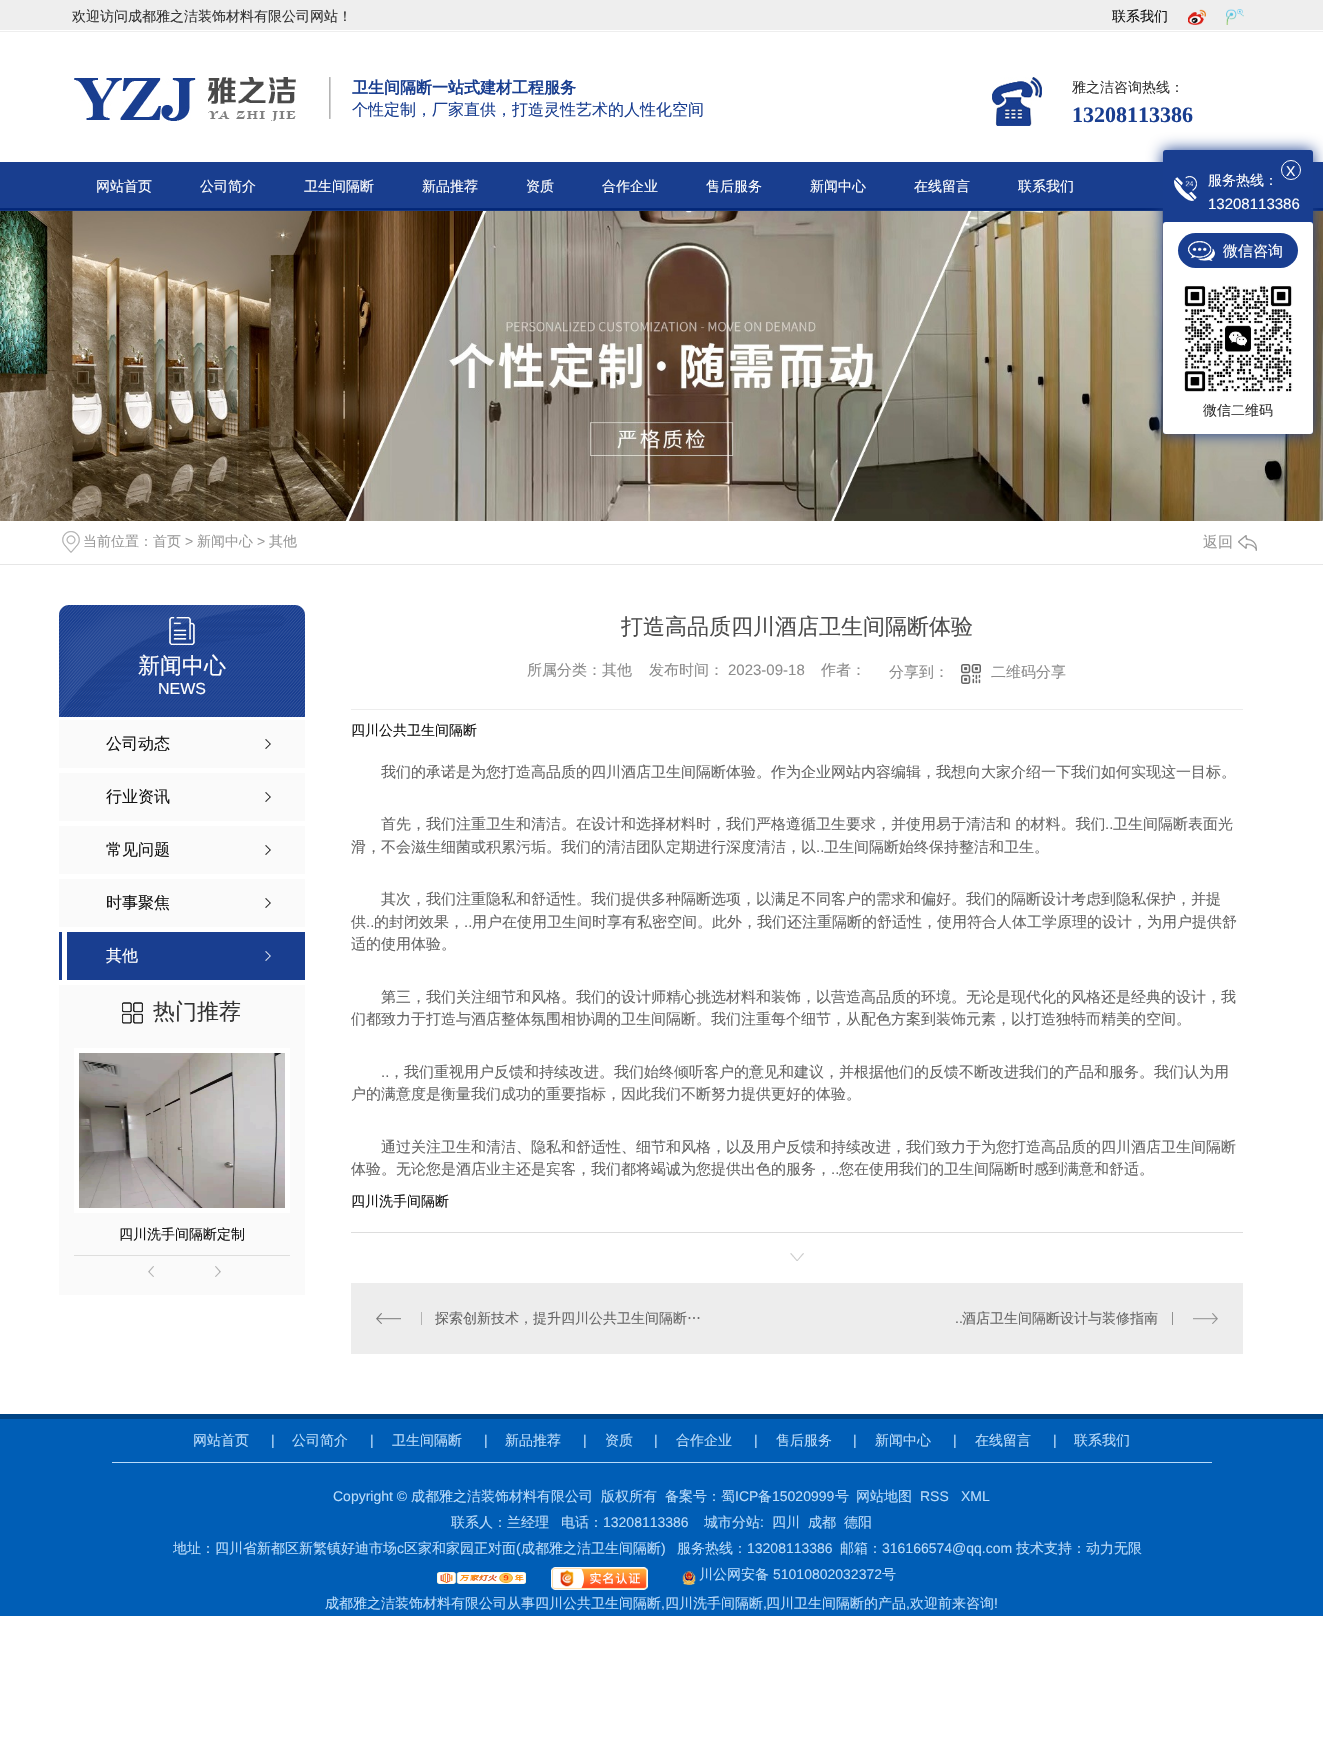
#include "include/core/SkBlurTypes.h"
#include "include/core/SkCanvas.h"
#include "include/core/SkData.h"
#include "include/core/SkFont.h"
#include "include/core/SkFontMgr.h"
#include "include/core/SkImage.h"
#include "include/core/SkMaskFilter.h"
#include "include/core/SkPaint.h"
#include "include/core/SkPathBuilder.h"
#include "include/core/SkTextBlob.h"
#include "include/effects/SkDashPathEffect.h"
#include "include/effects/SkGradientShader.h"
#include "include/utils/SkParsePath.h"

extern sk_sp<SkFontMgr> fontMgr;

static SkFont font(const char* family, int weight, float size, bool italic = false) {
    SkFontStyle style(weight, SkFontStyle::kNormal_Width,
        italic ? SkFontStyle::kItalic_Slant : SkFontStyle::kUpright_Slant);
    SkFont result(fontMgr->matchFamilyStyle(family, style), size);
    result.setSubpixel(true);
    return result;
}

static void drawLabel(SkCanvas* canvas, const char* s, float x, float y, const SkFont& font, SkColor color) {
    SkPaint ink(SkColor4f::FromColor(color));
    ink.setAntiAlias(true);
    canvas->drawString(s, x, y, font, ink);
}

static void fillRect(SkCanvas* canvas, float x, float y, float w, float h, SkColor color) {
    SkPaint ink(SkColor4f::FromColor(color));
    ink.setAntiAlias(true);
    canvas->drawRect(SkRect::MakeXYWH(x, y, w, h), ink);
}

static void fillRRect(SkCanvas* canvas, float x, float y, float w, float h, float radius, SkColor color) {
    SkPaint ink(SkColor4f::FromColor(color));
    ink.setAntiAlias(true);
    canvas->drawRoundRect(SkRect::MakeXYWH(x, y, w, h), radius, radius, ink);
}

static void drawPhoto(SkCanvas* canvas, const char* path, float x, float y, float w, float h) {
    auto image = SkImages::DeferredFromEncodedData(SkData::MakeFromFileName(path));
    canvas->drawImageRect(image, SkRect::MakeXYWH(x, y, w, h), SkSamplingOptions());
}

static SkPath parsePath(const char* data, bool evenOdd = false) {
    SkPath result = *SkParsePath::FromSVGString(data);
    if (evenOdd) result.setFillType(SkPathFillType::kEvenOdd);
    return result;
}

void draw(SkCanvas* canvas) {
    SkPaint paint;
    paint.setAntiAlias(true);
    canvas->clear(0xFFFFFFFF);
    drawPhoto(canvas, "assets/img1.png", 0, 0, 1323, 32);
    SkFont font1 = font("WenQuanYi Zen Hei", 500, 14);
    drawLabel(canvas, "欢迎访问成都雅之洁装饰材料有限公司网站！", 72, 21, font1, 0xFF333333);
    drawLabel(canvas, "联系我们", 1112, 21, font1, 0xFF131313);
    drawPhoto(canvas, "assets/img2.png", 1188, 9, 18, 16);
    drawPhoto(canvas, "assets/img3.png", 1226, 9, 18, 16);
    drawPhoto(canvas, "assets/img4.png", 74, 77, 257, 44);
    SkFont font2 = font("WenQuanYi Zen Hei", 700, 16);
    drawLabel(canvas, "卫生间隔断一站式建材工程服务", 352, 93, font2, 0xFF193E90);
    SkFont font3 = font("WenQuanYi Zen Hei", 500, 16);
    drawLabel(canvas, "个性定制，厂家直供，打造灵性艺术的人性化空间", 352, 115, font3, 0xFF193E90);
    drawPhoto(canvas, "assets/img5.png", 992, 77, 50, 49);
    drawLabel(canvas, "雅之洁咨询热线：", 1072, 92, font1, 0xFF333333);
    SkFont font4 = font("Liberation Serif", 700, 22);
    drawLabel(canvas, "13208113386", 1072, 122, font4, 0xFF193E90);
    drawPhoto(canvas, "assets/img6.png", 0, 162, 1323, 49);
    drawLabel(canvas, "网站首页", 96, 191, font1, 0xFFFFFFFF);
    drawLabel(canvas, "公司简介", 200, 191, font1, 0xFFFFFFFF);
    drawLabel(canvas, "卫生间隔断", 304, 191, font1, 0xFFFFFFFF);
    drawLabel(canvas, "新品推荐", 422, 191, font1, 0xFFFFFFFF);
    drawLabel(canvas, "资质", 526, 191, font1, 0xFFFFFFFF);
    drawLabel(canvas, "合作企业", 602, 191, font1, 0xFFFFFFFF);
    drawLabel(canvas, "售后服务", 706, 191, font1, 0xFFFFFFFF);
    drawLabel(canvas, "新闻中心", 810, 191, font1, 0xFFFFFFFF);
    drawLabel(canvas, "在线留言", 914, 191, font1, 0xFFFFFFFF);
    drawLabel(canvas, "联系我们", 1018, 191, font1, 0xFFFFFFFF);
    drawPhoto(canvas, "assets/img10.png", 0, 211, 1323, 310);
    paint.setColor(0xFF193E90);
    paint.setMaskFilter(SkMaskFilter::MakeBlur(kNormal_SkBlurStyle, 7.5f));
    canvas->drawRoundRect(SkRect::MakeXYWH(1163, 150, 150, 284), 3, 3, paint);
    paint.setMaskFilter(nullptr);
    fillRRect(canvas, 1163, 150, 150, 284, 3, 0xFF193E90);
    paint.setStroke(true);
    paint.setStrokeWidth(1);
    paint.setColor(0xFFFFFFFF);
    canvas->drawCircle(1291, 170, 9.5f, paint);
    SkFont font5 = font("Liberation Sans", 400, 14);
    drawLabel(canvas, "X", 1286, 176, font5, 0xFFFFFFFF);
    drawPhoto(canvas, "assets/img7.png", 1174, 176, 23, 25);
    drawLabel(canvas, "服务热线：", 1208, 185, font1, 0xFFFFFFFF);
    SkFont font6 = font("Liberation Sans", 400, 15);
    drawLabel(canvas, "13208113386", 1208, 209, font6, 0xFFFFFFFF);
    fillRRect(canvas, 1163, 222, 150, 212, 3, 0xFFFFFFFF);
    fillRRect(canvas, 1178, 233, 120, 35, 17.5f, 0xFF193E90);
    drawPhoto(canvas, "assets/img8.png", 1188, 241, 27, 20);
    SkFont font7 = font("WenQuanYi Zen Hei", 500, 15);
    drawLabel(canvas, "微信咨询", 1223, 256, font7, 0xFFFFFFFF);
    drawPhoto(canvas, "assets/img9.png", 1184, 285, 109, 107);
    drawLabel(canvas, "微信二维码", 1203, 415, font1, 0xFF333333);
    fillRect(canvas, 0, 564, 1323, 1, 0xFFE6E6E6);
    drawPhoto(canvas, "assets/img11.png", 62, 531, 18, 22);
    drawLabel(canvas, "当前位置：首页", 83, 546, font1, 0xFF999999);
    drawLabel(canvas, ">", 185, 546, font5, 0xFF999999);
    drawLabel(canvas, "新闻中心", 197, 546, font1, 0xFF999999);
    drawLabel(canvas, ">", 257, 546, font5, 0xFF999999);
    drawLabel(canvas, "其他", 269, 546, font1, 0xFF999999);
    drawLabel(canvas, "返回", 1203, 547, font7, 0xFF999999);
    drawPhoto(canvas, "assets/img12.png", 1238, 535, 19, 16);
    paint.setStroke(false);
    paint.setColor(0xFF193E90);
    canvas->drawPath(parsePath("M69 605H295C300.5 605 305 609.5 305 615V717H59V615C59 609.5 63.5 605 69 605Z"), paint);
    drawPhoto(canvas, "assets/img13.png", 59, 605, 246, 112);
    drawPhoto(canvas, "assets/img14.png", 169, 617, 26, 28);
    SkFont font8 = font("WenQuanYi Zen Hei", 500, 22);
    drawLabel(canvas, "新闻中心", 138, 673, font8, 0xFFFFFFFF);
    SkFont font9 = font("Liberation Sans", 400, 16);
    drawLabel(canvas, "NEWS", 158, 694, font9, 0xFFFFFFFF);
    fillRect(canvas, 59, 720, 246, 48, 0xFFFAFAFA);
    drawPhoto(canvas, "assets/img15.png", 265, 739, 6, 10);
    drawLabel(canvas, "公司动态", 106, 749, font3, 0xFF131313);
    fillRect(canvas, 59, 773, 246, 48, 0xFFFAFAFA);
    drawPhoto(canvas, "assets/img15.png", 265, 792, 6, 10);
    drawLabel(canvas, "行业资讯", 106, 802, font3, 0xFF131313);
    fillRect(canvas, 59, 826, 246, 48, 0xFFFAFAFA);
    drawPhoto(canvas, "assets/img15.png", 265, 845, 6, 10);
    drawLabel(canvas, "常见问题", 106, 855, font3, 0xFF131313);
    fillRect(canvas, 59, 879, 246, 48, 0xFFFAFAFA);
    drawPhoto(canvas, "assets/img15.png", 265, 898, 6, 10);
    drawLabel(canvas, "时事聚焦", 106, 908, font3, 0xFF131313);
    fillRect(canvas, 59, 932, 246, 48, 0xFF193E90);
    fillRect(canvas, 62, 932, 5, 48, 0xFFFFFFFF);
    drawPhoto(canvas, "assets/img16.png", 265, 951, 6, 10);
    drawLabel(canvas, "其他", 106, 961, font3, 0xFFFFFFFF);
    fillRect(canvas, 59, 985, 246, 310, 0xFFFAFAFA);
    drawPhoto(canvas, "assets/img17.png", 122, 1002, 21, 22);
    drawLabel(canvas, "热门推荐", 153, 1019, font8, 0xFF333333);
    paint.setStroke(true);
    paint.setStrokeWidth(5);
    paint.setColor(0xFFFFFFFF);
    canvas->drawRect(SkRect::MakeXYWH(76.5f, 1050.5f, 211, 160), paint);
    drawPhoto(canvas, "assets/img18.png", 79, 1053, 206, 155);
    fillRect(canvas, 74, 1255, 216, 1, 0xFFDEDEDD);
    drawLabel(canvas, "四川洗手间隔断定制", 119, 1239, font1, 0xFF131313);
    drawPhoto(canvas, "assets/img19.png", 148, 1266, 6, 11);
    drawPhoto(canvas, "assets/img20.png", 215, 1266, 6, 11);
    drawLabel(canvas, "打造高品质四川酒店卫生间隔断体验", 621, 634, font8, 0xFF4C4C4C);
    drawLabel(canvas, "所属分类：其他", 527, 675, font7, 0xFF8C8C8C);
    drawLabel(canvas, "发布时间：", 649, 675, font7, 0xFF8C8C8C);
    drawLabel(canvas, "2023-09-18", 728, 675, font6, 0xFF8C8C8C);
    drawLabel(canvas, "作者：", 821, 675, font7, 0xFF8C8C8C);
    drawLabel(canvas, "分享到：", 889, 677, font7, 0xFF8C8C8C);
    drawPhoto(canvas, "assets/img21.png", 961, 664, 20, 20);
    drawLabel(canvas, "二维码分享", 991, 677, font7, 0xFF8C8C8C);
    fillRect(canvas, 351, 709, 892, 1, 0xFFEDEDED);
    fillRect(canvas, 351, 1232, 892, 1, 0xFFDDDDDD);
    drawLabel(canvas, "四川公共卫生间隔断", 351, 735, font1, 0xFF131313);
    drawLabel(canvas, "我们的承诺是为您打造高品质的四川酒店卫生间隔断体验。作为企业网站内容编辑，我想向大家介绍一下我们如何实现这一目标。", 381, 777, font7, 0xFF666666);
    drawLabel(canvas, "首先，我们注重卫生和清洁。在设计和选择材料时，我们严格遵循卫生要求，并使用易于清洁和 的材料。我们", 381, 829, font7, 0xFF666666);
    drawLabel(canvas, "..", 1105, 829, font6, 0xFF666666);
    drawLabel(canvas, "卫生间隔断表面光", 1113, 829, font7, 0xFF666666);
    drawLabel(canvas, "滑，不会滋生细菌或积累污垢。我们的清洁团队定期进行深度清洁，以", 351, 852, font7, 0xFF666666);
    drawLabel(canvas, "..", 816, 852, font6, 0xFF666666);
    drawLabel(canvas, "卫生间隔断始终保持整洁和卫生。", 824, 852, font7, 0xFF666666);
    drawLabel(canvas, "其次，我们注重隐私和舒适性。我们提供多种隔断选项，以满足不同客户的需求和偏好。我们的隔断设计考虑到隐私保护，并提", 381, 904, font7, 0xFF666666);
    drawLabel(canvas, "供", 351, 927, font7, 0xFF666666);
    drawLabel(canvas, "..", 366, 927, font6, 0xFF666666);
    drawLabel(canvas, "的封闭效果，", 374, 927, font7, 0xFF666666);
    drawLabel(canvas, "..", 464, 927, font6, 0xFF666666);
    drawLabel(canvas, "用户在使用卫生间时享有私密空间。此外，我们还注重隔断的舒适性，使用符合人体工学原理的设计，为用户提供舒", 472, 927, font7, 0xFF666666);
    drawLabel(canvas, "适的使用体验。", 351, 949, font7, 0xFF666666);
    drawLabel(canvas, "第三，我们关注细节和风格。我们的设计师精心挑选材料和装饰，以营造高品质的环境。无论是现代化的风格还是经典的设计，我", 381, 1002, font7, 0xFF666666);
    drawLabel(canvas, "们都致力于打造与酒店整体氛围相协调的卫生间隔断。我们注重每个细节，从配色方案到装饰元素，以打造独特而精美的空间。", 351, 1024, font7, 0xFF666666);
    drawLabel(canvas, "..", 381, 1077, font6, 0xFF666666);
    drawLabel(canvas, "，我们重视用户反馈和持续改进。我们始终倾听客户的意见和建议，并根据他们的反馈不断改进我们的产品和服务。我们认为用", 389, 1077, font7, 0xFF666666);
    drawLabel(canvas, "户的满意度是衡量我们成功的重要指标，因此我们不断努力提供更好的体验。", 351, 1099, font7, 0xFF666666);
    drawLabel(canvas, "通过关注卫生和清洁、隐私和舒适性、细节和风格，以及用户反馈和持续改进，我们致力于为您打造高品质的四川酒店卫生间隔断", 381, 1152, font7, 0xFF666666);
    drawLabel(canvas, "体验。无论您是酒店业主还是宾客，我们都将竭诚为您提供出色的服务，", 351, 1174, font7, 0xFF666666);
    drawLabel(canvas, "..", 831, 1174, font6, 0xFF666666);
    drawLabel(canvas, "您在使用我们的卫生间隔断时感到满意和舒适。", 839, 1174, font7, 0xFF666666);
    drawLabel(canvas, "四川洗手间隔断", 351, 1206, font1, 0xFF131313);
    drawPhoto(canvas, "assets/img22.png", 790, 1253, 14, 8);
    fillRect(canvas, 351, 1283, 892, 71, 0xFFEDEDED);
    drawPhoto(canvas, "assets/img23.png", 376, 1312, 46, 13);
    drawLabel(canvas, "探索创新技术，提升四川公共卫生间隔断…", 435, 1323, font1, 0xFF666666);
    drawPhoto(canvas, "assets/img24.png", 1172, 1312, 46, 13);
    drawLabel(canvas, "..", 955, 1323, font5, 0xFF666666);
    drawLabel(canvas, "酒店卫生间隔断设计与装修指南", 962, 1323, font1, 0xFF666666);
    fillRect(canvas, 0, 1419, 1323, 197, 0xFF005EB6);
    fillRect(canvas, 0, 1414, 1323, 5, 0xFF004484);
    fillRect(canvas, 112, 1462, 1100, 1, 0xFFB9DBFA);
    drawLabel(canvas, "网站首页", 193, 1445, font1, 0xFFB9DBFA);
    drawLabel(canvas, "|", 271, 1445, font5, 0xFFB9DBFA);
    drawLabel(canvas, "公司简介", 292, 1445, font1, 0xFFB9DBFA);
    drawLabel(canvas, "|", 370, 1445, font5, 0xFFB9DBFA);
    drawLabel(canvas, "卫生间隔断", 392, 1445, font1, 0xFFB9DBFA);
    drawLabel(canvas, "|", 484, 1445, font5, 0xFFB9DBFA);
    drawLabel(canvas, "新品推荐", 505, 1445, font1, 0xFFB9DBFA);
    drawLabel(canvas, "|", 583, 1445, font5, 0xFFB9DBFA);
    drawLabel(canvas, "资质", 605, 1445, font1, 0xFFB9DBFA);
    drawLabel(canvas, "|", 654, 1445, font5, 0xFFB9DBFA);
    drawLabel(canvas, "合作企业", 676, 1445, font1, 0xFFB9DBFA);
    drawLabel(canvas, "|", 754, 1445, font5, 0xFFB9DBFA);
    drawLabel(canvas, "售后服务", 776, 1445, font1, 0xFFB9DBFA);
    drawLabel(canvas, "|", 853, 1445, font5, 0xFFB9DBFA);
    drawLabel(canvas, "新闻中心", 875, 1445, font1, 0xFFB9DBFA);
    drawLabel(canvas, "|", 953, 1445, font5, 0xFFB9DBFA);
    drawLabel(canvas, "在线留言", 975, 1445, font1, 0xFFB9DBFA);
    drawLabel(canvas, "|", 1053, 1445, font5, 0xFFB9DBFA);
    drawLabel(canvas, "联系我们", 1074, 1445, font1, 0xFFB9DBFA);
    drawLabel(canvas, "Copyright ©", 333, 1501, font5, 0xFFB9DBFA);
    drawLabel(canvas, "成都雅之洁装饰材料有限公司", 411, 1501, font1, 0xFFB9DBFA);
    drawLabel(canvas, "版权所有", 601, 1501, font1, 0xFFB9DBFA);
    drawLabel(canvas, "备案号：蜀", 665, 1501, font1, 0xFFB9DBFA);
    drawLabel(canvas, "ICP", 735, 1501, font5, 0xFFB9DBFA);
    drawLabel(canvas, "备", 758, 1501, font1, 0xFFB9DBFA);
    drawLabel(canvas, "15020999", 772, 1501, font5, 0xFFB9DBFA);
    drawLabel(canvas, "号", 835, 1501, font1, 0xFFB9DBFA);
    drawLabel(canvas, "网站地图", 856, 1501, font1, 0xFFB9DBFA);
    drawLabel(canvas, "RSS", 920, 1501, font5, 0xFFB9DBFA);
    drawLabel(canvas, "XML", 961, 1501, font5, 0xFFB9DBFA);
    drawLabel(canvas, "联系人：兰经理", 451, 1527, font1, 0xFFB9DBFA);
    drawLabel(canvas, "电话：", 561, 1527, font1, 0xFFB9DBFA);
    drawLabel(canvas, "13208113386", 603, 1527, font5, 0xFFB9DBFA);
    drawLabel(canvas, "城市分站", 704, 1527, font1, 0xFFB9DBFA);
    drawLabel(canvas, ":", 760, 1527, font5, 0xFFB9DBFA);
    drawLabel(canvas, "四川", 772, 1527, font1, 0xFFB9DBFA);
    drawLabel(canvas, "成都", 808, 1527, font1, 0xFFB9DBFA);
    drawLabel(canvas, "德阳", 844, 1527, font1, 0xFFB9DBFA);
    drawLabel(canvas, "地址：四川省新都区新繁镇好迪市场", 173, 1553, font1, 0xFFB9DBFA);
    drawLabel(canvas, "c", 397, 1553, font5, 0xFFB9DBFA);
    drawLabel(canvas, "区家和家园正对面", 404, 1553, font1, 0xFFB9DBFA);
    drawLabel(canvas, "(", 516, 1553, font5, 0xFFB9DBFA);
    drawLabel(canvas, "成都雅之洁卫生间隔断", 521, 1553, font1, 0xFFB9DBFA);
    drawLabel(canvas, ")", 661, 1553, font5, 0xFFB9DBFA);
    drawLabel(canvas, "服务热线：", 677, 1553, font1, 0xFFB9DBFA);
    drawLabel(canvas, "13208113386", 747, 1553, font5, 0xFFB9DBFA);
    drawLabel(canvas, "邮箱：", 840, 1553, font1, 0xFFB9DBFA);
    drawLabel(canvas, "316166574@qq.com", 882, 1553, font5, 0xFFB9DBFA);
    drawLabel(canvas, "技术支持：动力无限", 1016, 1553, font1, 0xFFB9DBFA);
    drawPhoto(canvas, "assets/img25.png", 437, 1572, 89, 12);
    drawPhoto(canvas, "assets/img26.png", 551, 1567, 97, 23);
    drawPhoto(canvas, "assets/img27.png", 682, 1571, 14, 14);
    drawLabel(canvas, "川公网安备", 699, 1579, font1, 0xFFB9DBFA);
    drawLabel(canvas, "51010802032372", 773, 1579, font5, 0xFFB9DBFA);
    drawLabel(canvas, "号", 882, 1579, font1, 0xFFB9DBFA);
    drawLabel(canvas, "成都雅之洁装饰材料有限公司从事四川公共卫生间隔断", 325, 1608, font1, 0xFFB9DBFA);
    drawLabel(canvas, ",", 661, 1608, font5, 0xFFB9DBFA);
    drawLabel(canvas, "四川洗手间隔断", 665, 1608, font1, 0xFFB9DBFA);
    drawLabel(canvas, ",", 763, 1608, font5, 0xFFB9DBFA);
    drawLabel(canvas, "四川卫生间隔断的产品", 766, 1608, font1, 0xFFB9DBFA);
    drawLabel(canvas, ",", 906, 1608, font5, 0xFFB9DBFA);
    drawLabel(canvas, "欢迎前来咨询", 910, 1608, font1, 0xFFB9DBFA);
    drawLabel(canvas, "!", 994, 1608, font5, 0xFFB9DBFA);
}
